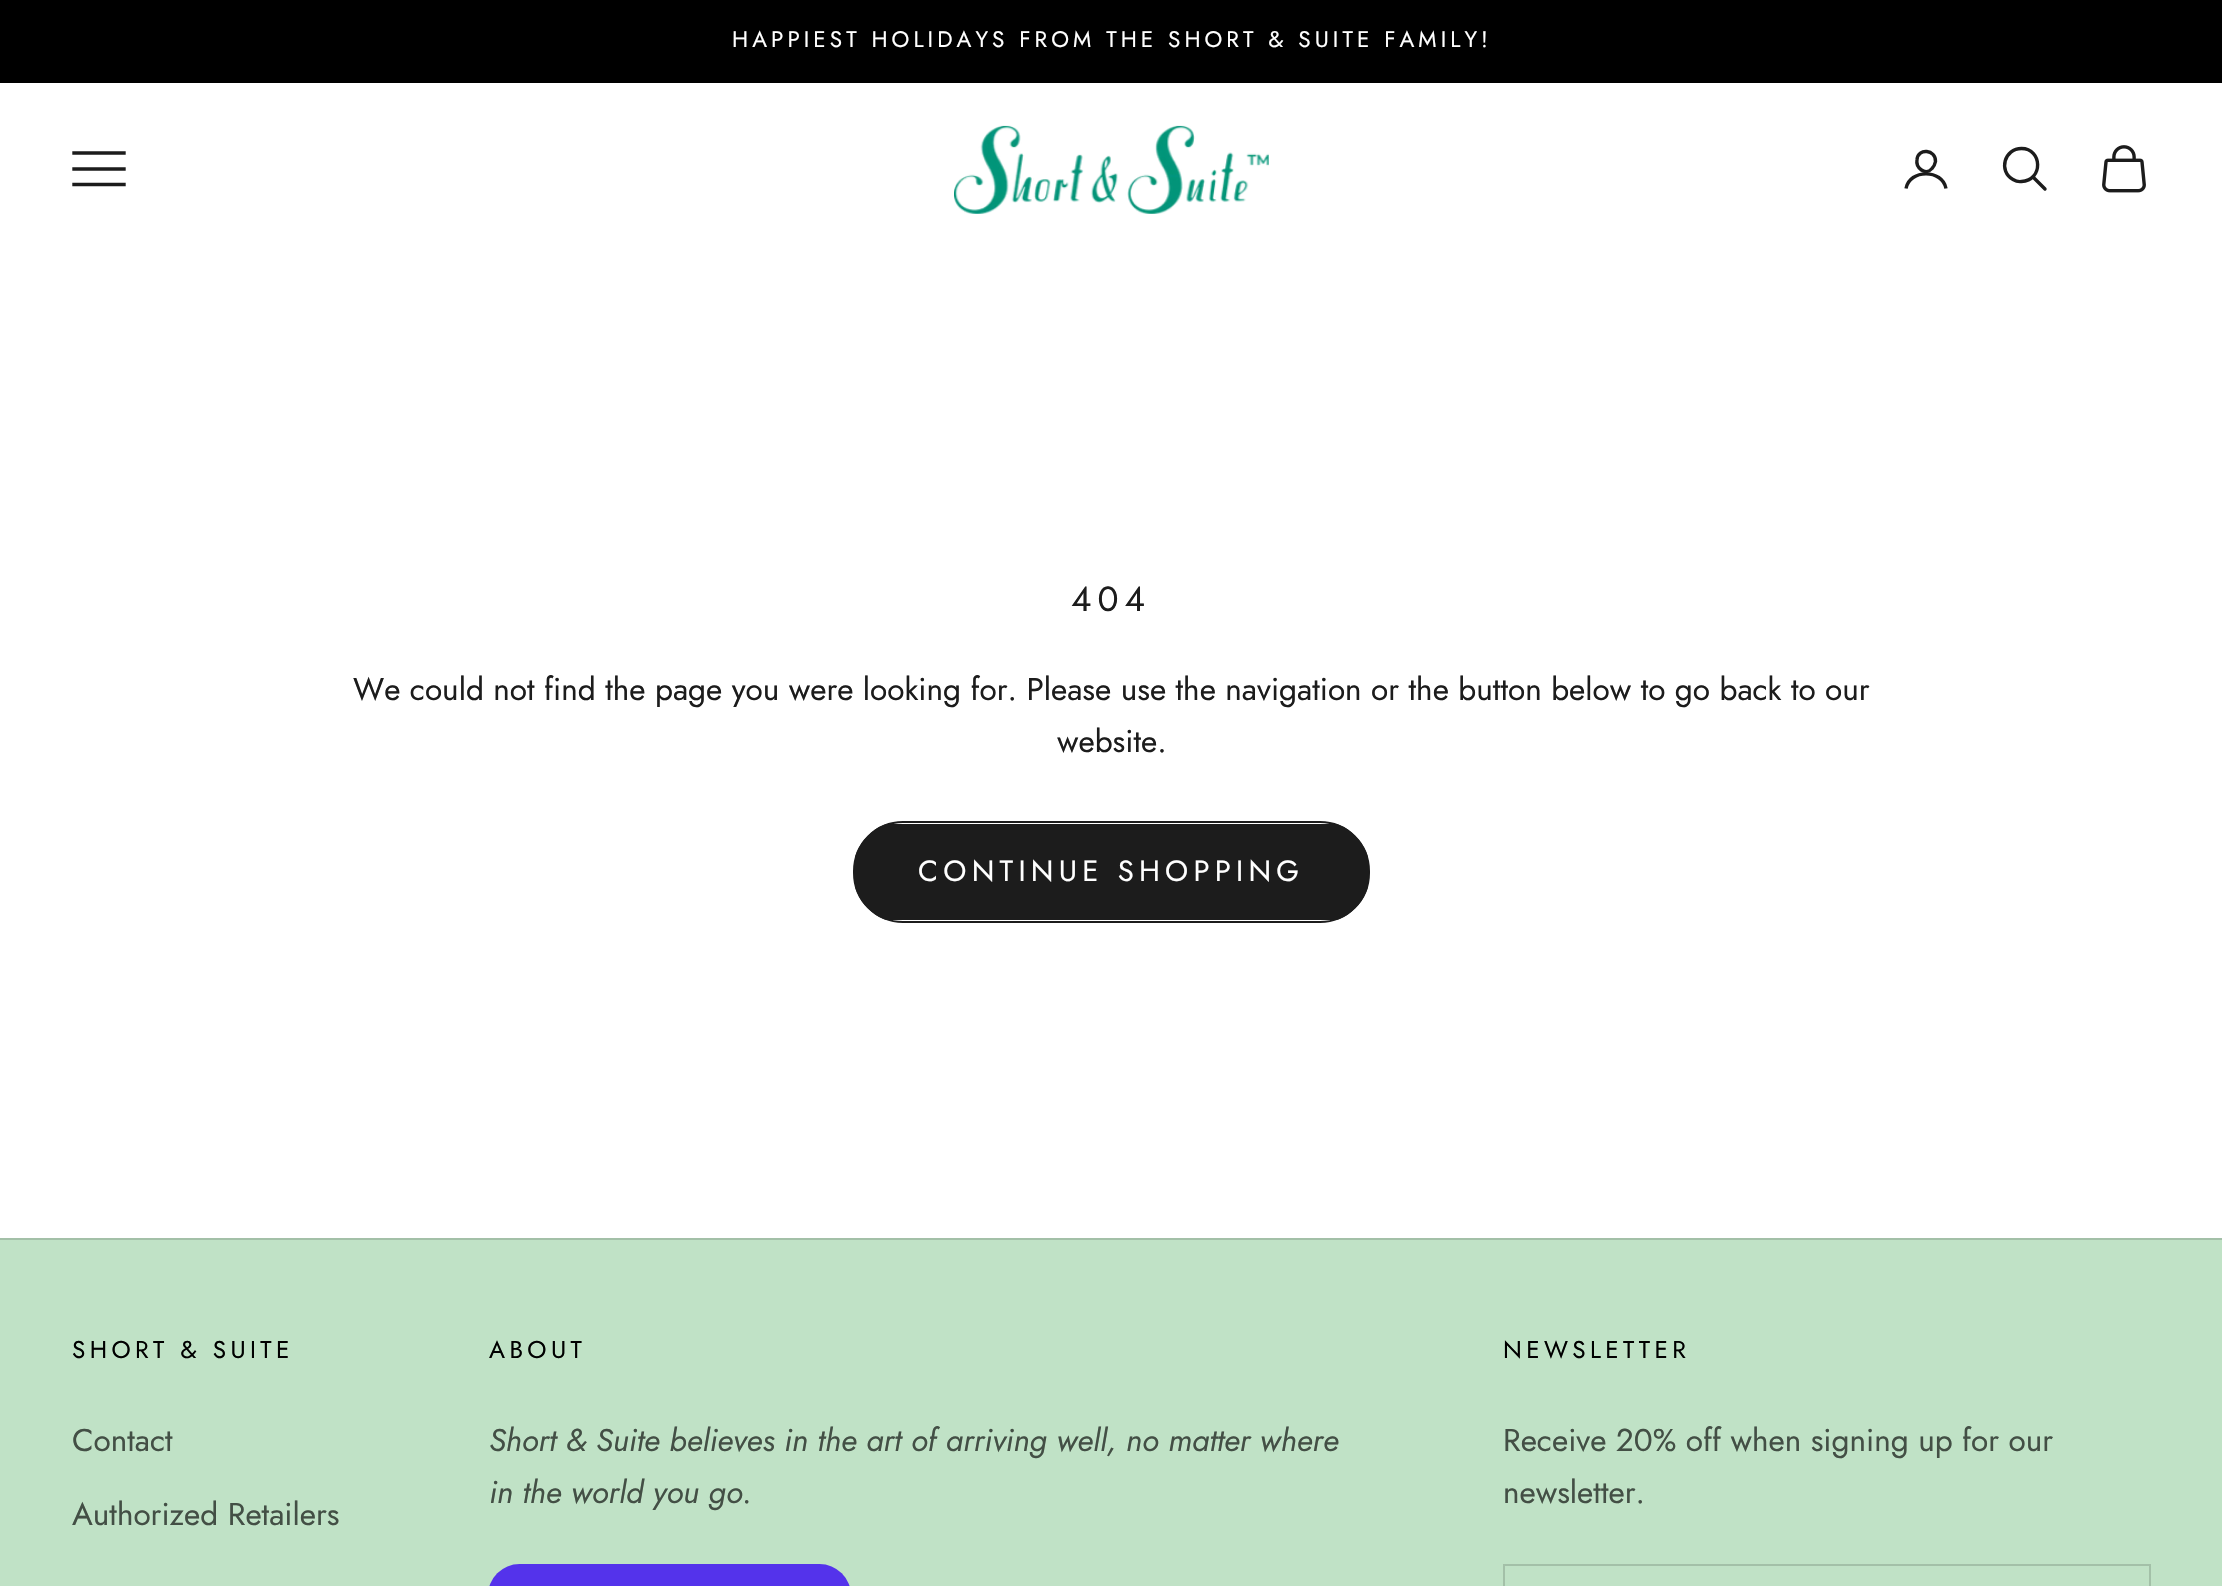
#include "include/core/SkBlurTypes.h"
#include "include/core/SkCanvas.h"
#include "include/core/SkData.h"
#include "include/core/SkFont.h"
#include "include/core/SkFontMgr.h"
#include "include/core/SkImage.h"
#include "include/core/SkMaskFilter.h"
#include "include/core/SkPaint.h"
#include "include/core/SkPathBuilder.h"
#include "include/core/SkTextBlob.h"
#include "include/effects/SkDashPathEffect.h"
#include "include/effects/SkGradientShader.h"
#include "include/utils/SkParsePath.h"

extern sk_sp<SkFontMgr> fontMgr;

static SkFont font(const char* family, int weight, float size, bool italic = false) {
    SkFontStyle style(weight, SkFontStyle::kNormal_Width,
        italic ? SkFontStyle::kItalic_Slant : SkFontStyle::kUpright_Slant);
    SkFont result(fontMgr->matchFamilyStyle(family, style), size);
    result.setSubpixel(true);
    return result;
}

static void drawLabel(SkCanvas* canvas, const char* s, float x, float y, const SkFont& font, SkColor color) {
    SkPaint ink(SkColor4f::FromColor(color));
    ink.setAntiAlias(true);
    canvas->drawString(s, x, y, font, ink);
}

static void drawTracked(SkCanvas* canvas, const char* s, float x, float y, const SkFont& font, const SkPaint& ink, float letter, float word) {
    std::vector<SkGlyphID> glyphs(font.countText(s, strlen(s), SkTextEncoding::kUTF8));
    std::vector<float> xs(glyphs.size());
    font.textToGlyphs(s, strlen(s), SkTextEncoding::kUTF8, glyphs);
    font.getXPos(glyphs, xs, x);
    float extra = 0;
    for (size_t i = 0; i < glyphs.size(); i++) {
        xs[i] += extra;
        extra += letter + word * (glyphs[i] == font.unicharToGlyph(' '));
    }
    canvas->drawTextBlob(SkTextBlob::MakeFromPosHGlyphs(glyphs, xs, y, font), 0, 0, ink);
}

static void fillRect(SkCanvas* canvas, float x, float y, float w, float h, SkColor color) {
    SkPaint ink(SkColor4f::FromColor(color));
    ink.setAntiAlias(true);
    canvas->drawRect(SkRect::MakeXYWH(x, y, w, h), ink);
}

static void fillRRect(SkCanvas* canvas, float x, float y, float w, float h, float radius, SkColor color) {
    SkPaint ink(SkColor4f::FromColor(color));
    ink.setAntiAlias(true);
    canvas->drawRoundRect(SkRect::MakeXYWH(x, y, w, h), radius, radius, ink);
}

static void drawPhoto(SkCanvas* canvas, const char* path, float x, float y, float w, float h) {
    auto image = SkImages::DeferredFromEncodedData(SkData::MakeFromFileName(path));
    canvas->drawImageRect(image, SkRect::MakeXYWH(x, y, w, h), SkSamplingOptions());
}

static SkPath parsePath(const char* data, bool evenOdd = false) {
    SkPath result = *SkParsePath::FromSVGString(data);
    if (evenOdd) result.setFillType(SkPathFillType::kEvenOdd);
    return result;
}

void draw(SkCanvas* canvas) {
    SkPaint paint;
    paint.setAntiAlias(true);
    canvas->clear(0xFFFFFFFF);
    fillRect(canvas, 0, 0, 2222, 83, 0xFF000000);
    SkFont font1 = font("Jost", 400, 22.5f);
    paint.setColor(0xFFFFFFFF);
    drawTracked(canvas, "HAPPIEST HOLIDAYS FROM THE SHORT & SUITE FAMILY!", 732, 47, font1, paint, 4.05f, 0);
    paint.setStroke(true);
    paint.setStrokeWidth(3.4f);
    paint.setStrokeCap(SkPaint::kSquare_Cap);
    paint.setColor(0xFF1C1C1C);
    canvas->drawPath(parsePath("M74 184.5H124M74 169H124M74 153H124"), paint);
    drawPhoto(canvas, "assets/img1.png", 954, 125, 315, 89);
    paint.setStrokeCap(SkPaint::kRound_Cap);
    paint.setStrokeJoin(SkPaint::kRound_Join);
    canvas->drawPath(parsePath("M1935.5 161.5C1935 164 1934 166.5 1932 168.5C1925.5 176 1915.5 168 1917 159.5C1918 147.5 1936 149.5 1935.5 161.5Z"), paint);
    paint.setStrokeCap(SkPaint::kButt_Cap);
    paint.setStrokeJoin(SkPaint::kMiter_Join);
    canvas->drawPath(parsePath("M1906 188.5C1909.5 169 1942.5 169 1946 188.5"), paint);
    canvas->drawPath(parsePath("M2021.5 148.5C2004.5 148.5 1998 171 2013 179.5C2015.5 181 2018.5 182 2021.5 181.5C2043.5 180.5 2042.5 148.5 2021.5 148.5Z"), paint);
    paint.setStrokeCap(SkPaint::kRound_Cap);
    canvas->drawPath(parsePath("M2033.5 177.5L2045 189"), paint);
    drawPhoto(canvas, "assets/img2.png", 2102, 145, 44, 48);
    SkFont font2 = font("Jost", 400, 35);
    paint.setStroke(false);
    drawTracked(canvas, "404", 1071, 611, font2, paint, 6, 0);
    SkFont font3 = font("Jost", 400, 31.5f);
    drawLabel(canvas, "We could not find the page you were looking for. Please use the navigation or the button below to go back to our", 353, 700, font3, 0xFF1C1C1C);
    drawLabel(canvas, "website.", 1057, 752, font3, 0xFF1C1C1C);
    canvas->save();
    canvas->clipPath(parsePath("M903 821H1320C1347.5 821 1370 843.5 1370 871V873C1370 900.5 1347.5 923 1320 923H903C875.5 923 853 900.5 853 873V871C853 843.5 875.5 821 903 821Z"), true);
    fillRect(canvas, 855, 824, 513, 96, 0xFF1C1C1C);
    canvas->restore();
    paint.setStroke(true);
    paint.setStrokeWidth(2);
    paint.setStrokeCap(SkPaint::kButt_Cap);
    canvas->drawRoundRect(SkRect::MakeXYWH(854, 822, 515, 100), 49, 49, paint);
    SkFont font4 = font("Jost", 400, 29.25f);
    paint.setStroke(false);
    paint.setColor(0xFFFFFFFF);
    drawTracked(canvas, "CONTINUE SHOPPING", 918, 881, font4, paint, 5.25f, 0);
    fillRect(canvas, 0, 1240, 2222, 346, 0xFFC0E2C6);
    fillRect(canvas, 0, 1238, 2222, 2, 0xFFA3C0A8);
    SkFont font5 = font("Jost", 400, 24.25f);
    paint.setColor(0xFF000000);
    drawTracked(canvas, "SHORT & SUITE", 72, 1358, font5, paint, 4.4f, 0);
    drawLabel(canvas, "Contact", 72, 1451, font3, 0xFF434F45);
    drawLabel(canvas, "Authorized Retailers", 72, 1525, font3, 0xFF434F45);
    drawTracked(canvas, "ABOUT", 489, 1358, font5, paint, 4.4f, 0);
    SkFont font6 = font("Jost", 400, 31.5f, true);
    drawLabel(canvas, "Short & Suite believes in the art of arriving well, no matter where", 489, 1451, font6, 0xFF434F45);
    drawLabel(canvas, "in the world you go.", 489, 1503, font6, 0xFF434F45);
    fillRRect(canvas, 488, 1564, 363, 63, 40.5f, 0xFF5433EB);
    drawTracked(canvas, "NEWSLETTER", 1503, 1358, font5, paint, 4.4f, 0);
    drawLabel(canvas, "Receive 20% off when signing up for our", 1503, 1451, font3, 0xFF434F45);
    drawLabel(canvas, "newsletter.", 1503, 1503, font3, 0xFF434F45);
    paint.setStroke(true);
    paint.setColor(0xFFA3C0A8);
    canvas->drawRect(SkRect::MakeXYWH(1504, 1565, 646, 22), paint);
}
